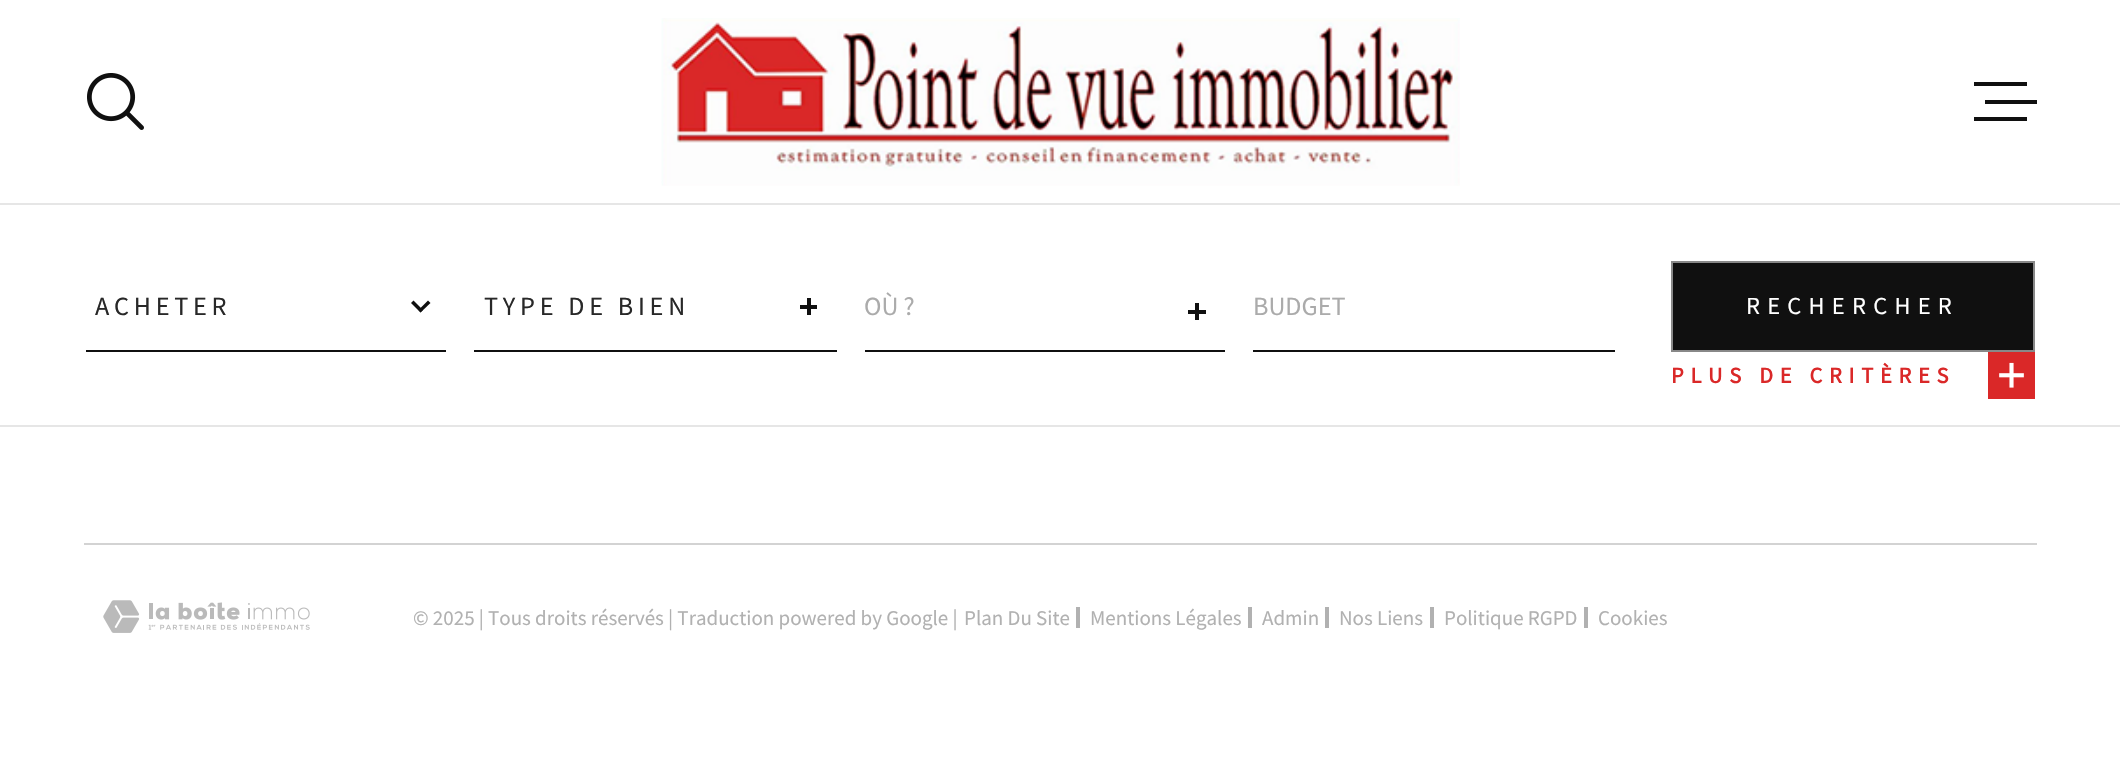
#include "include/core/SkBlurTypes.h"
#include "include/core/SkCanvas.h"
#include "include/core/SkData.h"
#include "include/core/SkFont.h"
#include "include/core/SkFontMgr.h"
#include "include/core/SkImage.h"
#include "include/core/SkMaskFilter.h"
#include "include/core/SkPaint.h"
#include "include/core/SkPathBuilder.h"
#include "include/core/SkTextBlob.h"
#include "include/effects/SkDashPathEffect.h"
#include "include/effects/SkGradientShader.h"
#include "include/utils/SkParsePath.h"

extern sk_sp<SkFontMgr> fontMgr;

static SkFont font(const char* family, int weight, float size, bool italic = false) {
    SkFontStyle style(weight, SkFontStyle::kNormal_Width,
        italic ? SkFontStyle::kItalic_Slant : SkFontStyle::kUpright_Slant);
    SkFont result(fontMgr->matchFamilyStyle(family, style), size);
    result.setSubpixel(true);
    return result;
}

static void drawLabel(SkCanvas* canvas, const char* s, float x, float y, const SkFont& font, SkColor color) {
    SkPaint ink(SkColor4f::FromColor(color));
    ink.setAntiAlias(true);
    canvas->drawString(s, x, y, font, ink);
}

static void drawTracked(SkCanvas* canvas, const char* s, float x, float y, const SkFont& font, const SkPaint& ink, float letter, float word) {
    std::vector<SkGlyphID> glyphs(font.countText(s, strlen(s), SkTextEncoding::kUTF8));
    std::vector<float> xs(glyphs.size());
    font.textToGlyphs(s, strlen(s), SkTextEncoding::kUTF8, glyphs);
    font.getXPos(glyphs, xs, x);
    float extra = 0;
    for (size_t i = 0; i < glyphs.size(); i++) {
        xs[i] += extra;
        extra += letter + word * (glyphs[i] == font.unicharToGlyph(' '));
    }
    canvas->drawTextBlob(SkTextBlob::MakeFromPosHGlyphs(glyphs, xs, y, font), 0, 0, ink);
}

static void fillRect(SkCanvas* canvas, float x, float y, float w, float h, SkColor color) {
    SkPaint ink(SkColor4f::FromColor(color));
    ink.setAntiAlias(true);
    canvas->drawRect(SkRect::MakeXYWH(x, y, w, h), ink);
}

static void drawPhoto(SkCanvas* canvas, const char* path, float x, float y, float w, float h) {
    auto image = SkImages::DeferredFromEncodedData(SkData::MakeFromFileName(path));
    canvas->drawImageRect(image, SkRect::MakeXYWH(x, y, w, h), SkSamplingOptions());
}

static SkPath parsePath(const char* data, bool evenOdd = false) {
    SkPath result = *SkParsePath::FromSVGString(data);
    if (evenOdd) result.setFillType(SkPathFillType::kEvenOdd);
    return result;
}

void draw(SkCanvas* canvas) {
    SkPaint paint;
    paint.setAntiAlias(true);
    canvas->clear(0xFFFFFFFF);
    drawPhoto(canvas, "assets/img1.png", 87, 73, 57, 57);
    drawPhoto(canvas, "assets/img2.png", 661, 18, 799, 168);
    fillRect(canvas, 1985, 100, 52, 4, 0xFF101010);
    fillRect(canvas, 1974, 82, 53, 4, 0xFF101010);
    fillRect(canvas, 1974, 117, 53, 4, 0xFF101010);
    fillRect(canvas, 0, 203, 2120, 2, 0xFFE6E6E6);
    fillRect(canvas, 86, 350, 360, 2, 0xFF101010);
    SkFont font1 = font("Source Sans Pro", 400, 26.25f);
    paint.setColor(0xFF282828);
    drawTracked(canvas, "ACHETER", 95, 315, font1, paint, 4.75f, 0);
    paint.setColor(0xFF101010);
    canvas->drawPath(parsePath("M428 300.5L430.5 303L420.5 312.5L418.5 310Z"), paint);
    canvas->drawPath(parsePath("M413.5 300.5L423 310L420.5 312.5L411 303Z"), paint);
    fillRect(canvas, 474, 350, 363, 2, 0xFF101010);
    paint.setColor(0xFF282828);
    drawTracked(canvas, "TYPE DE BIEN", 484, 315, font1, paint, 4.75f, 0);
    fillRect(canvas, 807, 298, 4, 17, 0xFF101010);
    fillRect(canvas, 800, 305, 17, 4, 0xFF101010);
    fillRect(canvas, 865, 350, 360, 2, 0xFF101010);
    drawLabel(canvas, "OÙ ?", 864, 315, font1, 0xFFABABAB);
    fillRect(canvas, 1195, 303, 4, 17, 0xFF101010);
    fillRect(canvas, 1188, 310, 18, 4, 0xFF101010);
    fillRect(canvas, 1253, 350, 362, 2, 0xFF101010);
    drawLabel(canvas, "BUDGET", 1253, 315, font1, 0xFFABABAB);
    paint.setColor(0xFF101010);
    canvas->drawRect(SkRect::MakeXYWH(1672, 262, 362, 89), paint);
    paint.setStroke(true);
    paint.setStrokeWidth(2);
    paint.setColor(0xFF888888);
    canvas->drawRect(SkRect::MakeXYWH(1672, 262, 362, 89), paint);
    SkFont font2 = font("Source Sans Pro", 400, 24.5f);
    paint.setStroke(false);
    paint.setColor(0xFFFFFFFF);
    drawTracked(canvas, "RECHERCHER", 1746, 314, font2, paint, 7.25f, 0);
    SkFont font3 = font("Source Sans Pro", 700, 22.4f);
    paint.setColor(0xFFDA2828);
    drawTracked(canvas, "PLUS DE CRITÈRES", 1671, 383, font3, paint, 6.75f, 0);
    fillRect(canvas, 1988, 352, 47, 47, 0xFFDA2828);
    drawPhoto(canvas, "assets/img3.png", 1999, 362, 25, 26);
    fillRect(canvas, 0, 425, 2120, 2, 0xFFE6E6E6);
    fillRect(canvas, 84, 543, 1953, 2, 0xFFD3D3D3);
    drawPhoto(canvas, "assets/img4.png", 103, 600, 207, 33);
    SkFont font4 = font("Source Sans Pro", 400, 21);
    drawLabel(canvas, "© 2025 | Tous droits réservés | Traduction powered by Google |", 413, 625, font4, 0xFFB1B1B1);
    fillRect(canvas, 1076, 607, 4, 21, 0xFFB1B1B1);
    drawLabel(canvas, "Plan Du Site", 964, 625, font4, 0xFFB1B1B1);
    fillRect(canvas, 1248, 607, 4, 21, 0xFFB1B1B1);
    drawLabel(canvas, "Mentions Légales", 1090, 625, font4, 0xFFB1B1B1);
    fillRect(canvas, 1325, 607, 4, 21, 0xFFB1B1B1);
    drawLabel(canvas, "Admin", 1262, 625, font4, 0xFFB1B1B1);
    fillRect(canvas, 1430, 607, 4, 21, 0xFFB1B1B1);
    drawLabel(canvas, "Nos Liens", 1339, 625, font4, 0xFFB1B1B1);
    fillRect(canvas, 1584, 607, 4, 21, 0xFFB1B1B1);
    drawLabel(canvas, "Politique RGPD", 1444, 625, font4, 0xFFB1B1B1);
    drawLabel(canvas, "Cookies", 1598, 625, font4, 0xFFB1B1B1);
}
